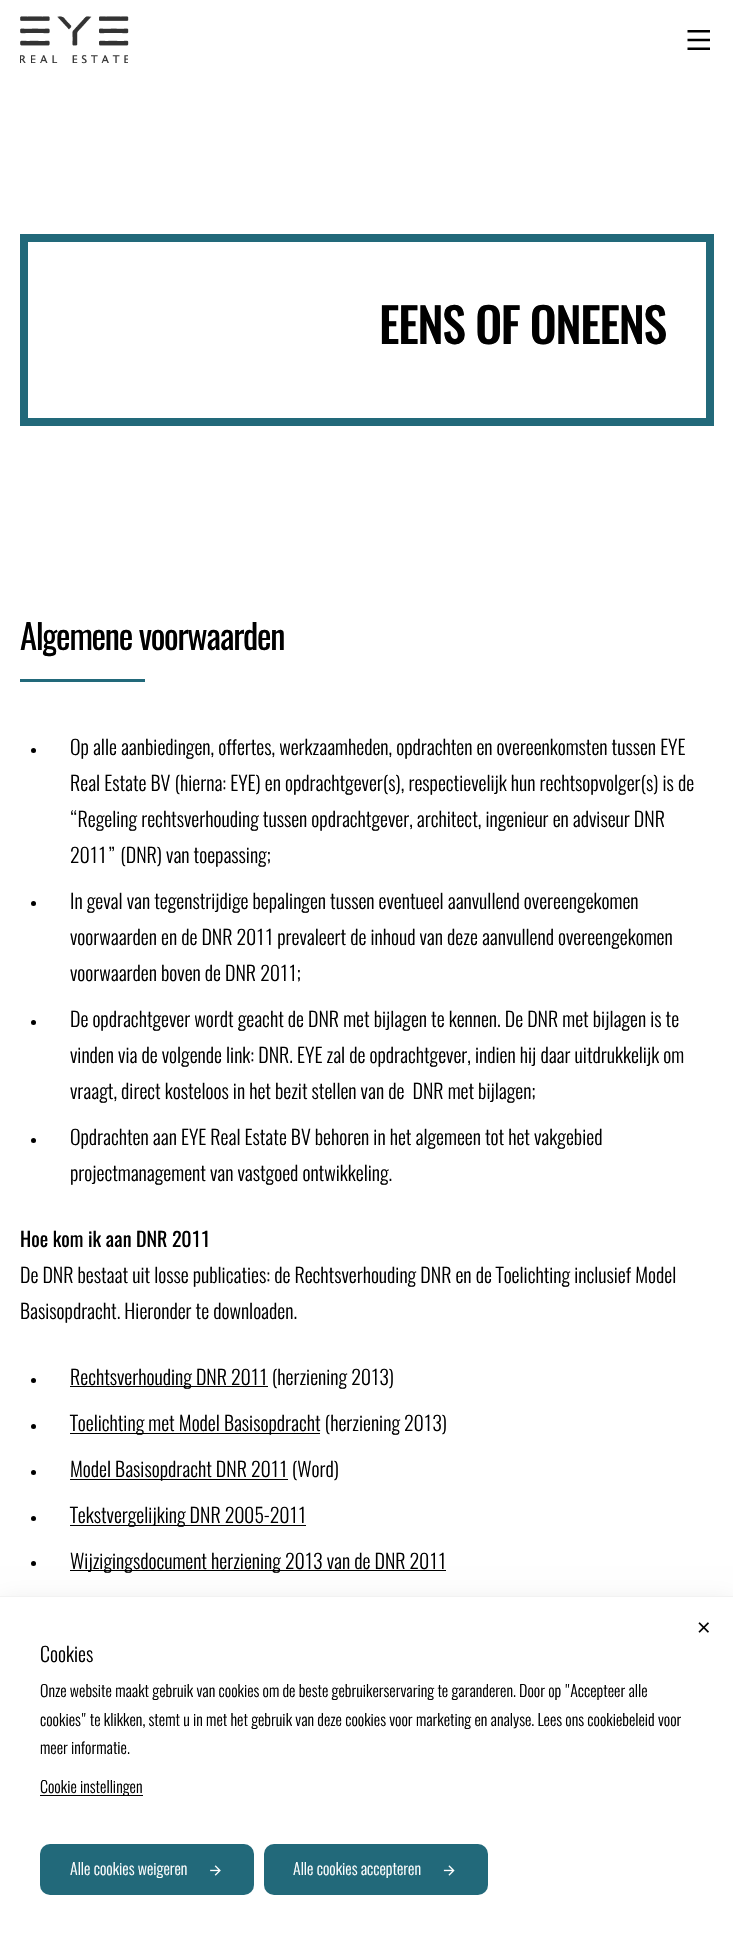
#include "include/core/SkBlurTypes.h"
#include "include/core/SkCanvas.h"
#include "include/core/SkData.h"
#include "include/core/SkFont.h"
#include "include/core/SkFontMgr.h"
#include "include/core/SkImage.h"
#include "include/core/SkMaskFilter.h"
#include "include/core/SkPaint.h"
#include "include/core/SkPathBuilder.h"
#include "include/core/SkTextBlob.h"
#include "include/effects/SkDashPathEffect.h"
#include "include/effects/SkGradientShader.h"
#include "include/utils/SkParsePath.h"

extern sk_sp<SkFontMgr> fontMgr;

static SkFont font(const char* family, int weight, float size, bool italic = false) {
    SkFontStyle style(weight, SkFontStyle::kNormal_Width,
        italic ? SkFontStyle::kItalic_Slant : SkFontStyle::kUpright_Slant);
    SkFont result(fontMgr->matchFamilyStyle(family, style), size);
    result.setSubpixel(true);
    return result;
}

static void drawLabel(SkCanvas* canvas, const char* s, float x, float y, const SkFont& font, SkColor color) {
    SkPaint ink(SkColor4f::FromColor(color));
    ink.setAntiAlias(true);
    canvas->drawString(s, x, y, font, ink);
}

static void drawTracked(SkCanvas* canvas, const char* s, float x, float y, const SkFont& font, const SkPaint& ink, float letter, float word) {
    std::vector<SkGlyphID> glyphs(font.countText(s, strlen(s), SkTextEncoding::kUTF8));
    std::vector<float> xs(glyphs.size());
    font.textToGlyphs(s, strlen(s), SkTextEncoding::kUTF8, glyphs);
    font.getXPos(glyphs, xs, x);
    float extra = 0;
    for (size_t i = 0; i < glyphs.size(); i++) {
        xs[i] += extra;
        extra += letter + word * (glyphs[i] == font.unicharToGlyph(' '));
    }
    canvas->drawTextBlob(SkTextBlob::MakeFromPosHGlyphs(glyphs, xs, y, font), 0, 0, ink);
}

static void fillRect(SkCanvas* canvas, float x, float y, float w, float h, SkColor color) {
    SkPaint ink(SkColor4f::FromColor(color));
    ink.setAntiAlias(true);
    canvas->drawRect(SkRect::MakeXYWH(x, y, w, h), ink);
}

static void fillRRect(SkCanvas* canvas, float x, float y, float w, float h, float radius, SkColor color) {
    SkPaint ink(SkColor4f::FromColor(color));
    ink.setAntiAlias(true);
    canvas->drawRoundRect(SkRect::MakeXYWH(x, y, w, h), radius, radius, ink);
}

static void drawPhoto(SkCanvas* canvas, const char* path, float x, float y, float w, float h) {
    auto image = SkImages::DeferredFromEncodedData(SkData::MakeFromFileName(path));
    canvas->drawImageRect(image, SkRect::MakeXYWH(x, y, w, h), SkSamplingOptions());
}

void draw(SkCanvas* canvas) {
    SkPaint paint;
    paint.setAntiAlias(true);
    canvas->clear(0xFFFFFFFF);
    drawPhoto(canvas, "assets/img1.png", 20, 16, 109, 48);
    drawPhoto(canvas, "assets/img2.png", 687, 30, 23, 20);
    paint.setStroke(true);
    paint.setStrokeWidth(8);
    paint.setColor(0xFF22697A);
    canvas->drawRect(SkRect::MakeXYWH(24, 238, 686, 184), paint);
    SkFont font1 = font("Oswald", 500, 48);
    paint.setStroke(false);
    paint.setColor(0xFF000000);
    drawTracked(canvas, "EENS OF ONEENS", 379, 344, font1, paint, -1.25f, 0);
    SkFont font2 = font("Oswald", 400, 34.5f);
    drawTracked(canvas, "Algemene voorwaarden", 20, 650, font2, paint, -1.25f, 0);
    fillRect(canvas, 20, 679, 125, 3, 0xFF22697A);
    canvas->drawCircle(33.5f, 750.5f, 2.5f, paint);
    SkFont font3 = font("Oswald", 300, 20);
    drawLabel(canvas, "Op alle aanbiedingen, offertes, werkzaamheden, opdrachten en overeenkomsten tussen EYE", 70, 755, font3, 0xFF000000);
    drawLabel(canvas, "Real Estate BV (hierna: EYE) en opdrachtgever(s), respectievelijk hun rechtsopvolger(s) is de", 70, 791, font3, 0xFF000000);
    drawLabel(canvas, "“Regeling rechtsverhouding tussen opdrachtgever, architect, ingenieur en adviseur DNR", 70, 827, font3, 0xFF000000);
    drawLabel(canvas, "2011” (DNR) van toepassing;", 70, 863, font3, 0xFF000000);
    canvas->drawCircle(33.5f, 903.5f, 2.5f, paint);
    drawLabel(canvas, "In geval van tegenstrijdige bepalingen tussen eventueel aanvullend overeengekomen", 70, 909, font3, 0xFF000000);
    drawLabel(canvas, "voorwaarden en de DNR 2011 prevaleert de inhoud van deze aanvullend overeengekomen", 70, 945, font3, 0xFF000000);
    drawLabel(canvas, "voorwaarden boven de DNR 2011;", 70, 981, font3, 0xFF000000);
    canvas->drawCircle(33.5f, 1022.5f, 2.5f, paint);
    drawLabel(canvas, "De opdrachtgever wordt geacht de DNR met bijlagen te kennen. De DNR met bijlagen is te", 70, 1027, font3, 0xFF000000);
    drawLabel(canvas, "vinden via de volgende link: DNR. EYE zal de opdrachtgever, indien hij daar uitdrukkelijk om", 70, 1063, font3, 0xFF000000);
    drawLabel(canvas, "vraagt, direct kosteloos in het bezit stellen van de  DNR met bijlagen;", 70, 1099, font3, 0xFF000000);
    canvas->drawCircle(33.5f, 1140.5f, 2.5f, paint);
    drawLabel(canvas, "Opdrachten aan EYE Real Estate BV behoren in het algemeen tot het vakgebied", 70, 1145, font3, 0xFF000000);
    drawLabel(canvas, "projectmanagement van vastgoed ontwikkeling.", 70, 1181, font3, 0xFF000000);
    SkFont font4 = font("Oswald", 400, 20);
    drawLabel(canvas, "Hoe kom ik aan DNR 2011", 20, 1247, font4, 0xFF000000);
    drawLabel(canvas, "De DNR bestaat uit losse publicaties: de Rechtsverhouding DNR en de Toelichting inclusief Model", 20, 1283, font3, 0xFF000000);
    drawLabel(canvas, "Basisopdracht. Hieronder te downloaden.", 20, 1319, font3, 0xFF000000);
    canvas->drawCircle(33.5f, 1380.5f, 2.5f, paint);
    fillRect(canvas, 70, 1386, 198, 1, 0xFF000000);
    drawLabel(canvas, "Rechtsverhouding DNR 2011 (herziening 2013)", 70, 1385, font3, 0xFF000000);
    canvas->drawCircle(33.5f, 1426.5f, 2.5f, paint);
    fillRect(canvas, 70, 1433, 250, 1, 0xFF000000);
    drawLabel(canvas, "Toelichting met Model Basisopdracht (herziening 2013)", 70, 1431, font3, 0xFF000000);
    canvas->drawCircle(33.5f, 1472.5f, 2.5f, paint);
    fillRect(canvas, 70, 1479, 218, 1, 0xFF000000);
    drawLabel(canvas, "Model Basisopdracht DNR 2011 (Word)", 70, 1477, font3, 0xFF000000);
    canvas->drawCircle(33.5f, 1518.5f, 2.5f, paint);
    fillRect(canvas, 70, 1525, 236, 1, 0xFF000000);
    drawLabel(canvas, "Tekstvergelijking DNR 2005-2011", 70, 1523, font3, 0xFF000000);
    canvas->drawCircle(33.5f, 1563.5f, 2.5f, paint);
    fillRect(canvas, 70, 1570, 376, 1, 0xFF000000);
    drawLabel(canvas, "Wijzigingsdocument herziening 2013 van de DNR 2011", 70, 1569, font3, 0xFF000000);
    paint.setColor(0x1A000000);
    paint.setMaskFilter(SkMaskFilter::MakeBlur(kNormal_SkBlurStyle, 12.5f));
    canvas->drawRect(SkRect::MakeXYWH(0, 1603, 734, 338), paint);
    paint.setMaskFilter(nullptr);
    fillRect(canvas, 0, 1597, 733, 338, 0xFFFFFFFF);
    fillRect(canvas, 0, 1596, 733, 1, 0xFFF2F2F2);
    drawPhoto(canvas, "assets/img3.png", 698, 1622, 11, 11);
    drawLabel(canvas, "Cookies", 40, 1662, font3, 0xFF000000);
    SkFont font5 = font("Oswald", 300, 16);
    drawLabel(canvas, "Onze website maakt gebruik van cookies om de beste gebruikerservaring te garanderen. Door op \"Accepteer alle", 40, 1697, font5, 0xFF000000);
    drawLabel(canvas, "cookies\" te klikken, stemt u in met het gebruik van deze cookies voor marketing en analyse. Lees ons cookiebeleid voor", 40, 1726, font5, 0xFF000000);
    drawLabel(canvas, "meer informatie.", 40, 1754, font5, 0xFF000000);
    fillRect(canvas, 40, 1795, 103, 1, 0xFF000000);
    drawLabel(canvas, "Cookie instellingen", 40, 1793, font5, 0xFF000000);
    fillRRect(canvas, 40, 1844, 214, 51, 10, 0xFF22697A);
    drawLabel(canvas, "Alle cookies weigeren", 70, 1875, font5, 0xFFFFFFFF);
    drawPhoto(canvas, "assets/img4.png", 210, 1865, 11, 11);
    fillRRect(canvas, 264, 1844, 224, 51, 10, 0xFF22697A);
    drawLabel(canvas, "Alle cookies accepteren", 293, 1875, font5, 0xFFFFFFFF);
    drawPhoto(canvas, "assets/img5.png", 443, 1865, 12, 11);
}
